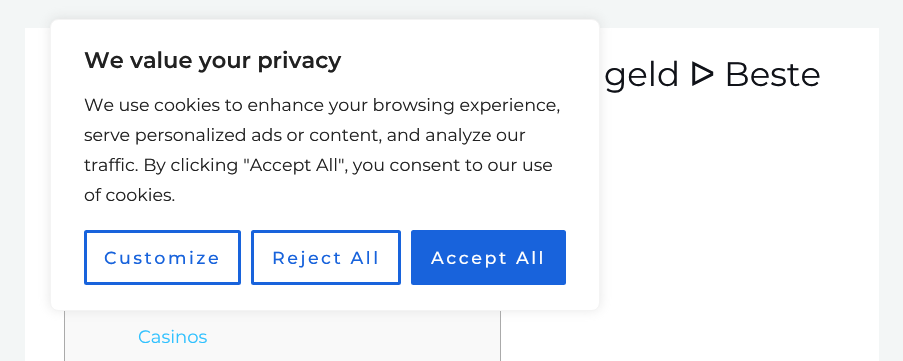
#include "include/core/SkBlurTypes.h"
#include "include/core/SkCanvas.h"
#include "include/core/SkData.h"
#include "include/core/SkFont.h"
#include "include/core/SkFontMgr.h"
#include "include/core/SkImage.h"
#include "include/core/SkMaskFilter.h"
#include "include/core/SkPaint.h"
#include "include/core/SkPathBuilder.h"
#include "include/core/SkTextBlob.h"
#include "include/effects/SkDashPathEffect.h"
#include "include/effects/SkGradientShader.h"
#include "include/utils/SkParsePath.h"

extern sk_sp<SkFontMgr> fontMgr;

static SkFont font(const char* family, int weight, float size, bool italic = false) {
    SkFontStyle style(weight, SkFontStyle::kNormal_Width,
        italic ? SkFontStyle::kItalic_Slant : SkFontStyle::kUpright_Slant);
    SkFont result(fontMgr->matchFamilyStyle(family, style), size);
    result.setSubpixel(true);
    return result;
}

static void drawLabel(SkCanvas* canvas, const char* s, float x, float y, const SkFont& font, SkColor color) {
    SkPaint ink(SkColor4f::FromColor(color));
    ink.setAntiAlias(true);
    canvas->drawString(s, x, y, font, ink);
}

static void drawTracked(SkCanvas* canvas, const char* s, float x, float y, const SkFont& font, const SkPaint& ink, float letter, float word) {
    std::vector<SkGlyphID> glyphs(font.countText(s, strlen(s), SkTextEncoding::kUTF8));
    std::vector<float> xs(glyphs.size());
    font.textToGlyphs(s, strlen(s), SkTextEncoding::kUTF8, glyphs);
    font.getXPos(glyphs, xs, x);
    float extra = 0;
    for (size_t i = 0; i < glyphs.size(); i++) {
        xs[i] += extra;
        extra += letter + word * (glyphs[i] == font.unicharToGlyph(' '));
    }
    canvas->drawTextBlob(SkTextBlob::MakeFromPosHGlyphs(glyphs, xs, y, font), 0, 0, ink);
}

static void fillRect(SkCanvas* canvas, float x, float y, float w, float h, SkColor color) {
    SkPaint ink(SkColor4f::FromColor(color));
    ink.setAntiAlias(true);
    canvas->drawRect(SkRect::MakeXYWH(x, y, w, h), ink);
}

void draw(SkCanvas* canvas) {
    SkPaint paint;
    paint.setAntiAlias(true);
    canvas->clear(0xFFF3F6F6);
    fillRect(canvas, 25, 28, 854, 333, 0xFFFFFFFF);
    fillRect(canvas, 65, 311, 435, 50, 0xFFF9F9F9);
    paint.setStroke(true);
    paint.setStrokeWidth(1);
    paint.setColor(0xFFAAAAAA);
    canvas->drawRect(SkRect::MakeXYWH(64.5f, 194.5f, 436, 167), paint);
    paint.setStroke(false);
    paint.setColor(0x4DACABAB);
    paint.setMaskFilter(SkMaskFilter::MakeBlur(kNormal_SkBlurStyle, 6));
    canvas->drawRoundRect(SkRect::MakeXYWH(50, 18, 550, 292), 8, 8, paint);
    paint.setMaskFilter(nullptr);
    paint.setColor(0xFFFFFFFF);
    canvas->drawRoundRect(SkRect::MakeXYWH(50.5f, 19.5f, 549, 291), 7.5f, 7.5f, paint);
    paint.setStroke(true);
    paint.setColor(0xFFF4F4F4);
    canvas->drawRoundRect(SkRect::MakeXYWH(50.5f, 19.5f, 549, 291), 7.5f, 7.5f, paint);
    SkFont font1 = font("Montserrat", 600, 22.5f);
    drawLabel(canvas, "We value your privacy", 84, 68, font1, 0xFF212121);
    SkFont font2 = font("Montserrat", 400, 17.5f);
    drawLabel(canvas, "We use cookies to enhance your browsing experience,", 84, 111, font2, 0xFF212121);
    drawLabel(canvas, "serve personalized ads or content, and analyze our", 84, 141, font2, 0xFF212121);
    drawLabel(canvas, "traffic. By clicking \"Accept All\", you consent to our use", 84, 171, font2, 0xFF212121);
    drawLabel(canvas, "of cookies.", 84, 201, font2, 0xFF212121);
    paint.setStrokeWidth(3);
    paint.setColor(0xFF1863DC);
    canvas->drawRoundRect(SkRect::MakeXYWH(85.5f, 231.5f, 154, 52), 1, 1, paint);
    SkFont font3 = font("Montserrat", 500, 17.5f);
    paint.setStroke(false);
    drawTracked(canvas, "Customize", 104, 264, font3, paint, 2.5f, 0);
    paint.setStroke(true);
    canvas->drawRoundRect(SkRect::MakeXYWH(252.5f, 231.5f, 147, 52), 1, 1, paint);
    paint.setStroke(false);
    drawTracked(canvas, "Reject All", 272, 264, font3, paint, 2.5f, 0);
    canvas->drawRoundRect(SkRect::MakeXYWH(412.5f, 231.5f, 152, 52), 1, 1, paint);
    paint.setStroke(true);
    canvas->drawRoundRect(SkRect::MakeXYWH(412.5f, 231.5f, 152, 52), 1, 1, paint);
    paint.setStroke(false);
    paint.setColor(0xFFFFFFFF);
    drawTracked(canvas, "Accept All", 431, 264, font3, paint, 2.5f, 0);
    SkFont font4 = font("Montserrat", 400, 34);
    drawLabel(canvas, "geld", 604, 86, font4, 0xFF101218);
    SkFont font5 = font("DejaVu Sans", 400, 34);
    drawLabel(canvas, "ᐅ", 689, 86, font5, 0xFF101218);
    drawLabel(canvas, "Beste", 724, 86, font4, 0xFF101218);
    SkFont font6 = font("Montserrat", 400, 18);
    drawLabel(canvas, "Casinos", 138, 343, font6, 0xFF2FC1FF);
}
